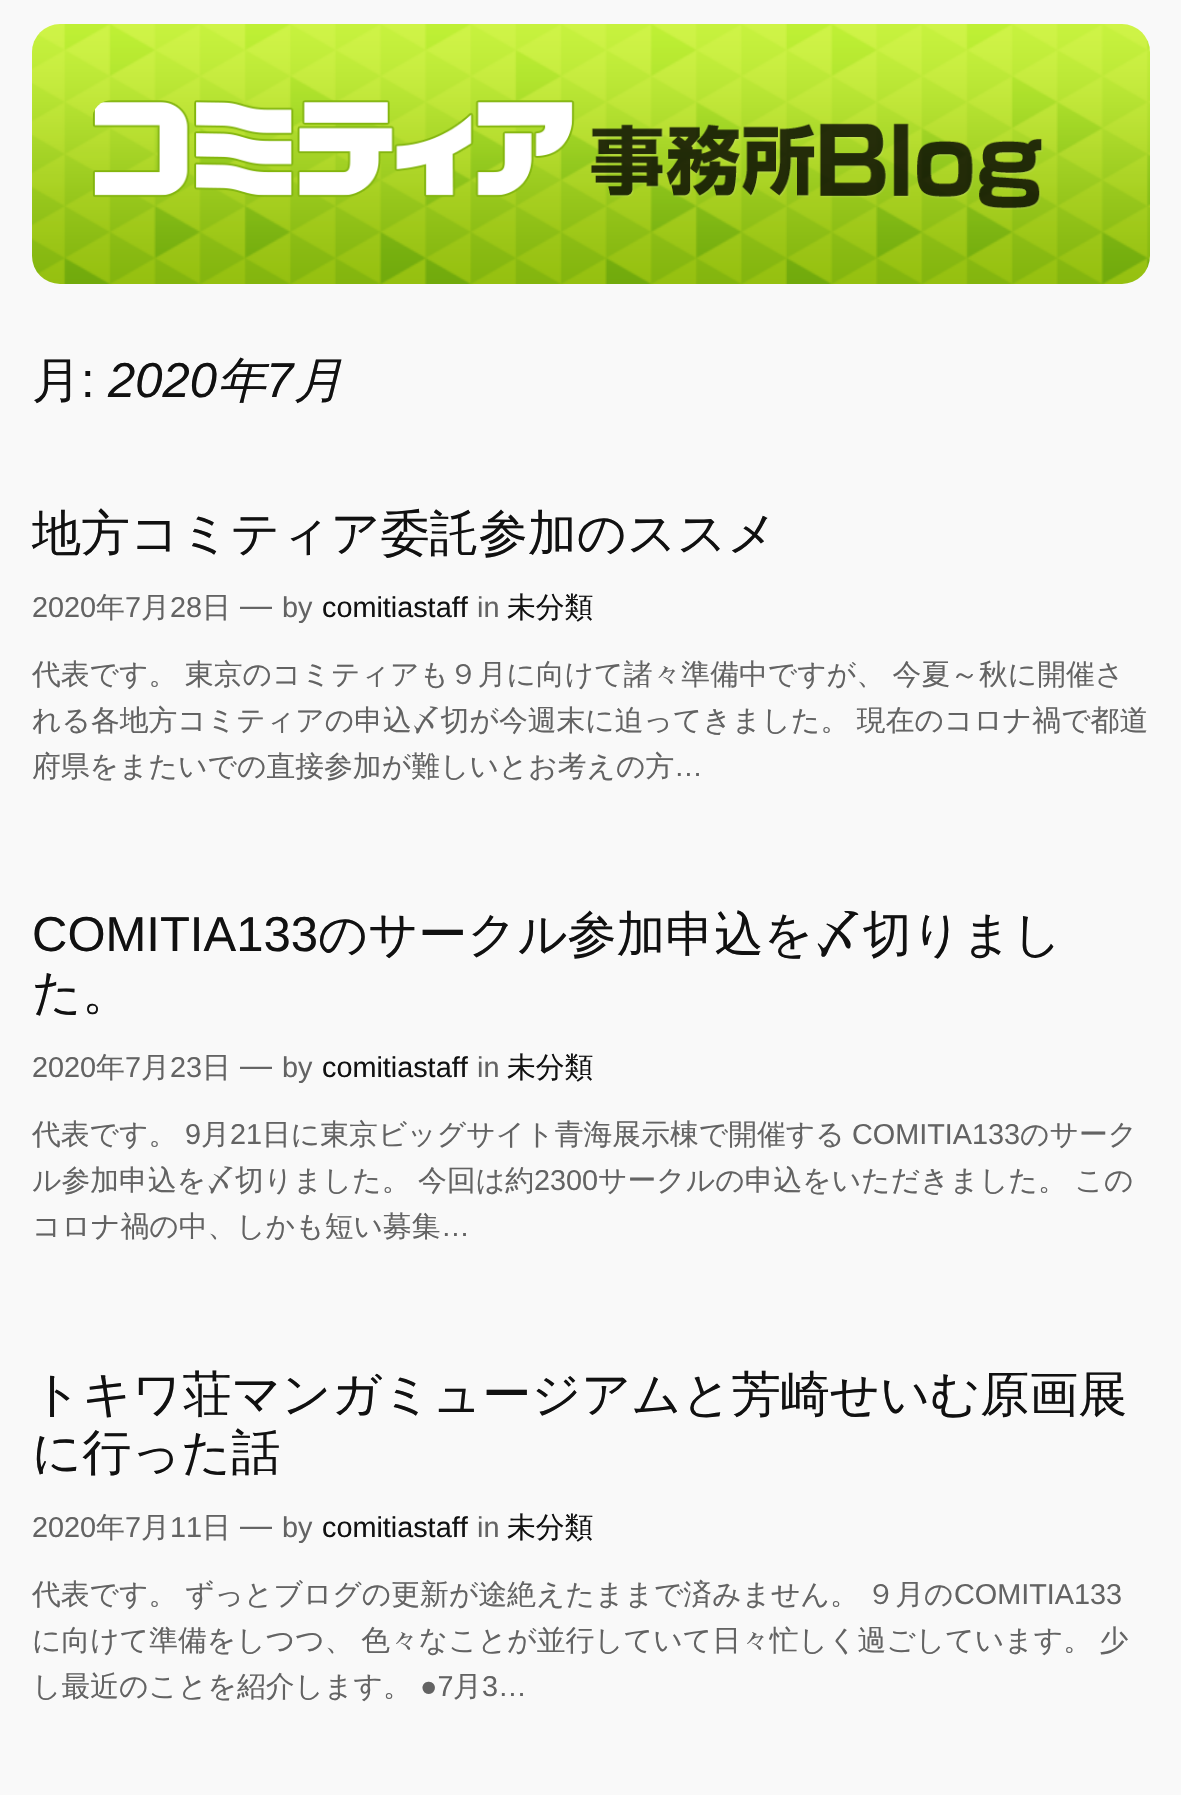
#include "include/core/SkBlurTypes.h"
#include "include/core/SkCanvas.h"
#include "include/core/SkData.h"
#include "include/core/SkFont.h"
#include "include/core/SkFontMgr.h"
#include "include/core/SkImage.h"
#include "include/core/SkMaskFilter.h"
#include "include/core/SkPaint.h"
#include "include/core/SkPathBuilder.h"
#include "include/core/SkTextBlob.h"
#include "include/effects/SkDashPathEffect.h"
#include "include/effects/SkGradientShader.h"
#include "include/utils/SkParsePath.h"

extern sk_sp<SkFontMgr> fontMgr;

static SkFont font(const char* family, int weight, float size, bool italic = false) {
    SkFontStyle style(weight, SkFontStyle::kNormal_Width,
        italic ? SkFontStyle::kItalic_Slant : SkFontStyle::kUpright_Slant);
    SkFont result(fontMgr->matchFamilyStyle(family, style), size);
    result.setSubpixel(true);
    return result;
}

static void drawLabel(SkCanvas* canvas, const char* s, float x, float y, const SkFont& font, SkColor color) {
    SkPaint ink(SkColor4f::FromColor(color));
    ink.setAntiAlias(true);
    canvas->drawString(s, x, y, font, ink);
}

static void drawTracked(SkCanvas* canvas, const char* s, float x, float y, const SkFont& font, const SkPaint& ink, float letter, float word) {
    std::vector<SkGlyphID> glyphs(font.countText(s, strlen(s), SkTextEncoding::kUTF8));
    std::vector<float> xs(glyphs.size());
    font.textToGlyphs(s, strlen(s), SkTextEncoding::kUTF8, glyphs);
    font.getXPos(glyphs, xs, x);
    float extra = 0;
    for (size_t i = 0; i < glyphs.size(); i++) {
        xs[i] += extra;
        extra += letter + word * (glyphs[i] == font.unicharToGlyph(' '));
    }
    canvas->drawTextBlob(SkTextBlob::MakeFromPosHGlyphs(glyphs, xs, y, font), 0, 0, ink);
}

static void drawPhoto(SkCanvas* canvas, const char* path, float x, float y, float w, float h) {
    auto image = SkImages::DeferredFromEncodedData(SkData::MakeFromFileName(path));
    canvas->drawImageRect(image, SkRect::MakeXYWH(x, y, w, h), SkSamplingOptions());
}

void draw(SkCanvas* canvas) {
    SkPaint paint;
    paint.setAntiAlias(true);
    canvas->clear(0xFFF9F9F9);
    drawPhoto(canvas, "assets/img1.png", 32, 24, 1118, 260);
    drawPhoto(canvas, "assets/img2.png", 92, 100, 951, 110);
    SkFont font1 = font("WenQuanYi Zen Hei", 500, 49);
    drawLabel(canvas, "月", 32, 397, font1, 0xFF111111);
    SkFont font2 = font("Liberation Sans", 400, 49);
    drawLabel(canvas, ":", 81, 397, font2, 0xFF111111);
    SkFont font3 = font("Liberation Sans", 400, 49, true);
    drawLabel(canvas, "2020", 108, 397, font3, 0xFF111111);
    SkFont font4 = font("WenQuanYi Zen Hei", 500, 49, true);
    drawLabel(canvas, "年", 217, 397, font4, 0xFF111111);
    drawLabel(canvas, "7", 266, 397, font3, 0xFF111111);
    drawLabel(canvas, "月", 294, 397, font4, 0xFF111111);
    drawLabel(canvas, "地方コミティア委託参加のススメ", 32, 550, font1, 0xFF111111);
    SkFont font5 = font("Liberation Sans", 400, 28.8f);
    drawLabel(canvas, "2020", 32, 617, font5, 0xFF636363);
    SkFont font6 = font("WenQuanYi Zen Hei", 500, 28.8f);
    drawLabel(canvas, "年", 96, 617, font6, 0xFF636363);
    drawLabel(canvas, "7", 125, 617, font5, 0xFF636363);
    drawLabel(canvas, "月", 141, 617, font6, 0xFF636363);
    drawLabel(canvas, "28", 170, 617, font5, 0xFF636363);
    drawLabel(canvas, "日", 202, 617, font6, 0xFF636363);
    SkFont font7 = font("Liberation Sans", 400, 32);
    drawLabel(canvas, "—", 240, 616, font7, 0xFF636363);
    drawLabel(canvas, "by", 282, 617, font5, 0xFF636363);
    drawLabel(canvas, "comitiastaff", 322, 617, font5, 0xFF111111);
    drawLabel(canvas, "in", 477, 617, font5, 0xFF636363);
    drawLabel(canvas, "未分類", 507, 617, font6, 0xFF111111);
    paint.setColor(0xFF636363);
    drawTracked(canvas, "代表です。 東京のコミティアも９月に向けて諸々準備中ですが、 今夏～秋に開催さ", 32, 684, font6, paint, 0, -1);
    drawTracked(canvas, "れる各地方コミティアの申込〆切が今週末に迫ってきました。 現在のコロナ禍で都道", 32, 730, font6, paint, 0, -1);
    drawLabel(canvas, "府県をまたいでの直接参加が難しいとお考えの方", 32, 776, font6, 0xFF636363);
    drawLabel(canvas, "…", 674, 776, font5, 0xFF636363);
    drawLabel(canvas, "COMITIA133", 32, 951, font2, 0xFF111111);
    drawLabel(canvas, "のサークル参加申込を〆切りまし", 318, 951, font1, 0xFF111111);
    drawLabel(canvas, "た。", 32, 1009, font1, 0xFF111111);
    drawLabel(canvas, "2020", 32, 1077, font5, 0xFF636363);
    drawLabel(canvas, "年", 96, 1077, font6, 0xFF636363);
    drawLabel(canvas, "7", 125, 1077, font5, 0xFF636363);
    drawLabel(canvas, "月", 141, 1077, font6, 0xFF636363);
    drawLabel(canvas, "23", 170, 1077, font5, 0xFF636363);
    drawLabel(canvas, "日", 202, 1077, font6, 0xFF636363);
    drawLabel(canvas, "—", 240, 1076, font7, 0xFF636363);
    drawLabel(canvas, "by", 282, 1077, font5, 0xFF636363);
    drawLabel(canvas, "comitiastaff", 322, 1077, font5, 0xFF111111);
    drawLabel(canvas, "in", 477, 1077, font5, 0xFF636363);
    drawLabel(canvas, "未分類", 507, 1077, font6, 0xFF111111);
    drawLabel(canvas, "代表です。", 32, 1144, font6, 0xFF636363);
    drawLabel(canvas, "9", 185, 1144, font5, 0xFF636363);
    drawLabel(canvas, "月", 201, 1144, font6, 0xFF636363);
    drawLabel(canvas, "21", 230, 1144, font5, 0xFF636363);
    drawLabel(canvas, "日に東京ビッグサイト青海展示棟で開催する", 262, 1144, font6, 0xFF636363);
    drawLabel(canvas, "COMITIA133", 852, 1144, font5, 0xFF636363);
    drawLabel(canvas, "のサーク", 1020, 1144, font6, 0xFF636363);
    drawTracked(canvas, "ル参加申込を〆切りました。 今回は約", 32, 1190, font6, paint, 0, -1);
    drawLabel(canvas, "2300", 534, 1190, font5, 0xFF636363);
    drawTracked(canvas, "サークルの申込をいただきました。 この", 598, 1190, font6, paint, 0, -1);
    drawLabel(canvas, "コロナ禍の中、しかも短い募集", 32, 1236, font6, 0xFF636363);
    drawLabel(canvas, "…", 441, 1236, font5, 0xFF636363);
    drawLabel(canvas, "トキワ荘マンガミュージアムと芳崎せいむ原画展", 32, 1411, font1, 0xFF111111);
    drawLabel(canvas, "に行った話", 32, 1469, font1, 0xFF111111);
    drawLabel(canvas, "2020", 32, 1537, font5, 0xFF636363);
    drawLabel(canvas, "年", 96, 1537, font6, 0xFF636363);
    drawLabel(canvas, "7", 125, 1537, font5, 0xFF636363);
    drawLabel(canvas, "月", 141, 1537, font6, 0xFF636363);
    drawLabel(canvas, "11", 170, 1537, font5, 0xFF636363);
    drawLabel(canvas, "日", 202, 1537, font6, 0xFF636363);
    drawLabel(canvas, "—", 240, 1536, font7, 0xFF636363);
    drawLabel(canvas, "by", 282, 1537, font5, 0xFF636363);
    drawLabel(canvas, "comitiastaff", 322, 1537, font5, 0xFF111111);
    drawLabel(canvas, "in", 477, 1537, font5, 0xFF636363);
    drawLabel(canvas, "未分類", 507, 1537, font6, 0xFF111111);
    drawTracked(canvas, "代表です。 ずっとブログの更新が途絶えたままで済みません。 ９月の", 32, 1604, font6, paint, 0, -1);
    drawLabel(canvas, "COMITIA133", 954, 1604, font5, 0xFF636363);
    drawTracked(canvas, "に向けて準備をしつつ、 色々なことが並行していて日々忙しく過ごしています。 少", 32, 1650, font6, paint, 0, -1);
    drawLabel(canvas, "し最近のことを紹介します。", 32, 1696, font6, 0xFF636363);
    drawLabel(canvas, "●7", 420, 1696, font5, 0xFF636363);
    drawLabel(canvas, "月", 453, 1696, font6, 0xFF636363);
    drawLabel(canvas, "3…", 482, 1696, font5, 0xFF636363);
}
